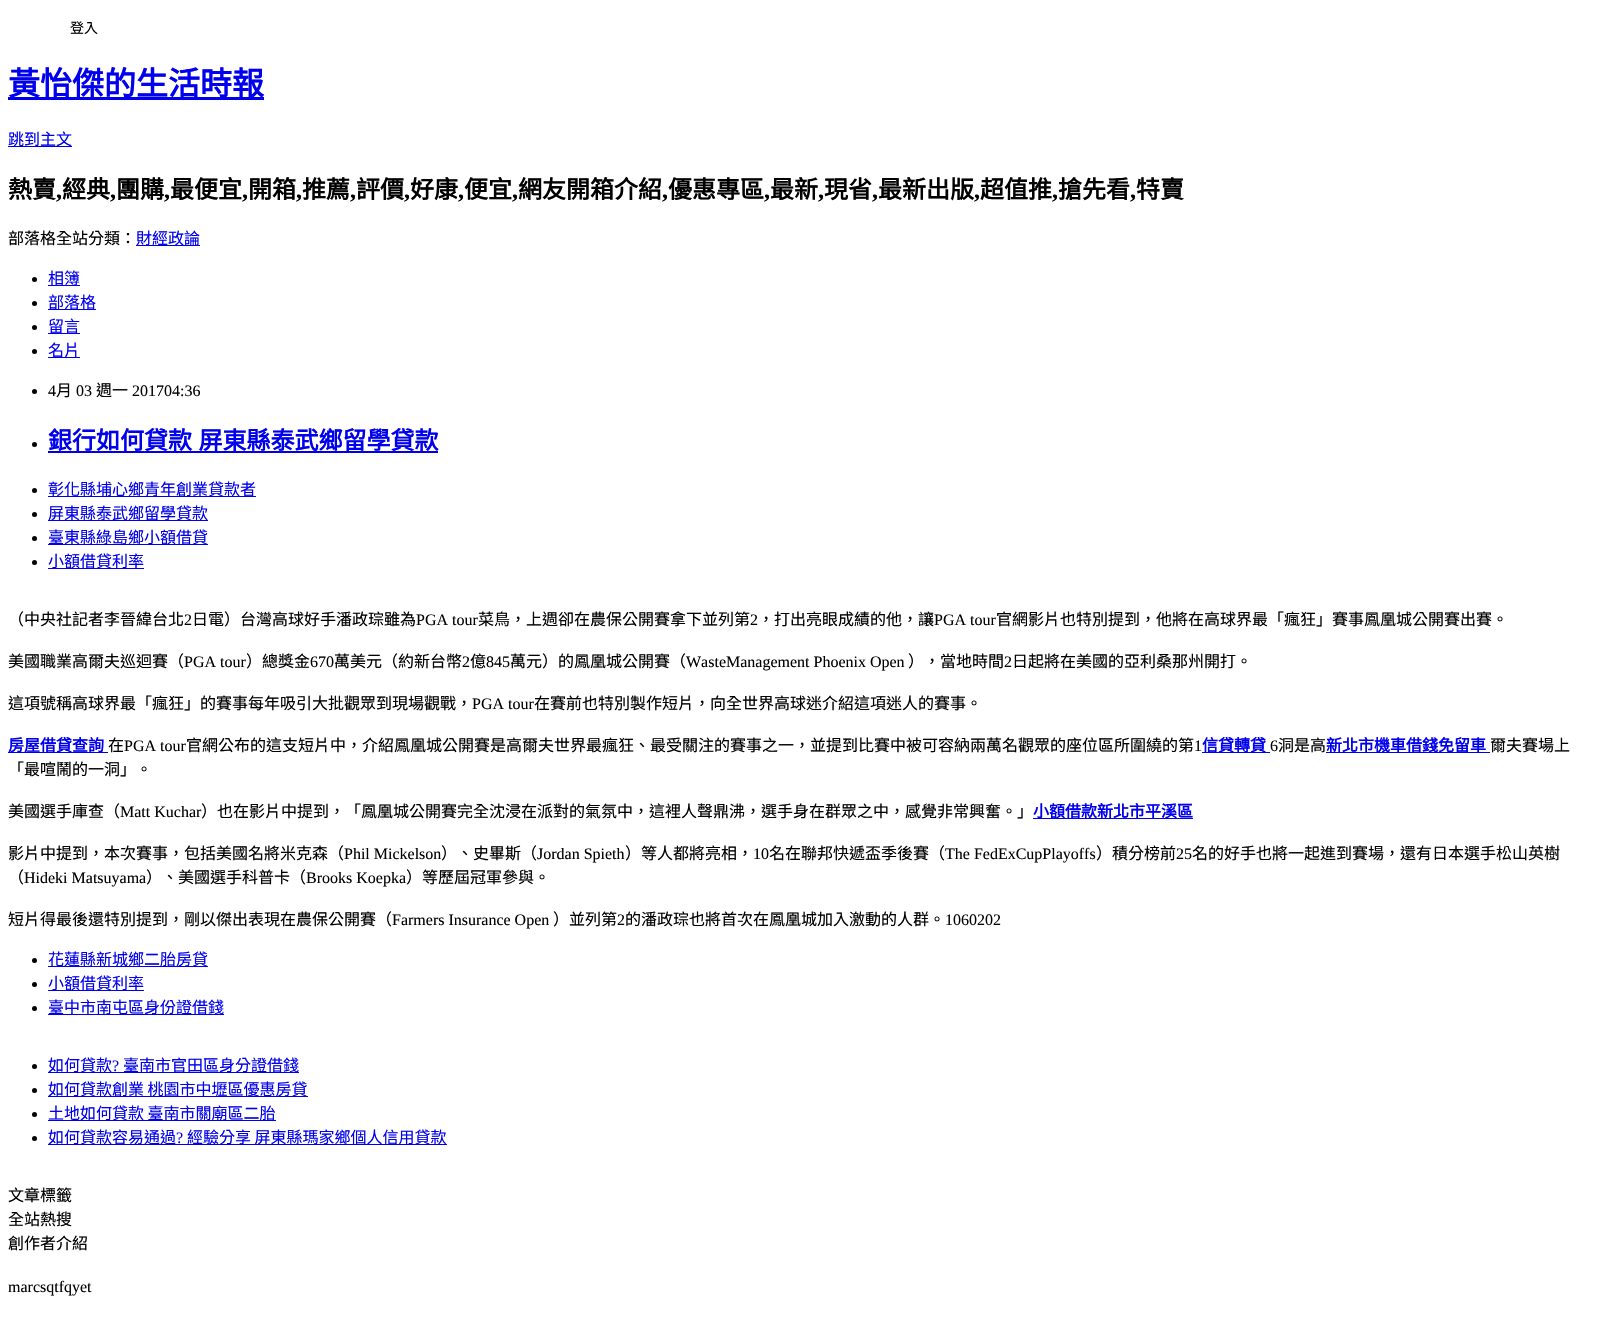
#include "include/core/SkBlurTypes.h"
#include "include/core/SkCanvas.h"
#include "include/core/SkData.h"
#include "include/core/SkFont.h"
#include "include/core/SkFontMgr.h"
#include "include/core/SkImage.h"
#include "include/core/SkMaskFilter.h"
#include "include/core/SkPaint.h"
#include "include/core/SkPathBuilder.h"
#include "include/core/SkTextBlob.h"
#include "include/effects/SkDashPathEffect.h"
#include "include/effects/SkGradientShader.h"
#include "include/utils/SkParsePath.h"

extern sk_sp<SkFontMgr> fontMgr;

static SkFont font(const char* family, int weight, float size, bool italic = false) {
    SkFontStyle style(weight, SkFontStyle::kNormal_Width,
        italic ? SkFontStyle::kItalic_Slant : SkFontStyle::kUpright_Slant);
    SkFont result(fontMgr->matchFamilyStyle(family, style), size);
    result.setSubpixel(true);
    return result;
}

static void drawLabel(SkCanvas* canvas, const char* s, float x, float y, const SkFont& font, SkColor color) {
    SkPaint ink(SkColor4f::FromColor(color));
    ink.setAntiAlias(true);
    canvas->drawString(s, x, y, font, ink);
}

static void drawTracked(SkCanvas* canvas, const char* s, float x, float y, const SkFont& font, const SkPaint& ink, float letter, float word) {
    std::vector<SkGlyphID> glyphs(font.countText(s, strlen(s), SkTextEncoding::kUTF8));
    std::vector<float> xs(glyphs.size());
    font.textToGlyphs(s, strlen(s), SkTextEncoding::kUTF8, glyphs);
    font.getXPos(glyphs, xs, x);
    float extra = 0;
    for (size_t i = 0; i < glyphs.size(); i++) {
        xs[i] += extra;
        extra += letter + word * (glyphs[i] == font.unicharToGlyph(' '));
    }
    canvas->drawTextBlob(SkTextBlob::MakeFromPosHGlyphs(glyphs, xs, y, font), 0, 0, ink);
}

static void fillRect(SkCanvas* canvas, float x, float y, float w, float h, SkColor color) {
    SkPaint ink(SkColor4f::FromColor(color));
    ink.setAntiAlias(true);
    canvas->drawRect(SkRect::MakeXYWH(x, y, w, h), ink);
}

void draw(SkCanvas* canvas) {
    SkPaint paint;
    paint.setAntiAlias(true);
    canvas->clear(0xFFFFFFFF);
    SkFont font1 = font("Noto Sans CJK TC", 400, 14);
    drawLabel(canvas, "登入", 70, 33, font1, 0xFF000000);
    fillRect(canvas, 8, 97, 256, 3, 0xFF0000EE);
    SkFont font2 = font("Noto Sans CJK TC", 700, 32);
    drawLabel(canvas, "黃怡傑的生活時報", 8, 95, font2, 0xFF0000EE);
    fillRect(canvas, 8, 146, 64, 1, 0xFF0000EE);
    SkFont font3 = font("Noto Sans CJK TC", 400, 16);
    drawLabel(canvas, "跳到主文", 8, 145, font3, 0xFF0000EE);
    SkFont font4 = font("Noto Sans CJK TC", 700, 24);
    drawLabel(canvas, "熱賣", 8, 198, font4, 0xFF000000);
    SkFont font5 = font("Liberation Serif", 700, 24);
    drawLabel(canvas, ",", 56, 198, font5, 0xFF000000);
    drawLabel(canvas, "經典", 62, 198, font4, 0xFF000000);
    drawLabel(canvas, ",", 110, 198, font5, 0xFF000000);
    drawLabel(canvas, "團購", 116, 198, font4, 0xFF000000);
    drawLabel(canvas, ",", 164, 198, font5, 0xFF000000);
    drawLabel(canvas, "最便宜", 170, 198, font4, 0xFF000000);
    drawLabel(canvas, ",", 242, 198, font5, 0xFF000000);
    drawLabel(canvas, "開箱", 248, 198, font4, 0xFF000000);
    drawLabel(canvas, ",", 296, 198, font5, 0xFF000000);
    drawLabel(canvas, "推薦", 302, 198, font4, 0xFF000000);
    drawLabel(canvas, ",", 350, 198, font5, 0xFF000000);
    drawLabel(canvas, "評價", 356, 198, font4, 0xFF000000);
    drawLabel(canvas, ",", 404, 198, font5, 0xFF000000);
    drawLabel(canvas, "好康", 410, 198, font4, 0xFF000000);
    drawLabel(canvas, ",", 458, 198, font5, 0xFF000000);
    drawLabel(canvas, "便宜", 464, 198, font4, 0xFF000000);
    drawLabel(canvas, ",", 512, 198, font5, 0xFF000000);
    drawLabel(canvas, "網友開箱介紹", 518, 198, font4, 0xFF000000);
    drawLabel(canvas, ",", 662, 198, font5, 0xFF000000);
    drawLabel(canvas, "優惠專區", 668, 198, font4, 0xFF000000);
    drawLabel(canvas, ",", 764, 198, font5, 0xFF000000);
    drawLabel(canvas, "最新", 770, 198, font4, 0xFF000000);
    drawLabel(canvas, ",", 818, 198, font5, 0xFF000000);
    drawLabel(canvas, "現省", 824, 198, font4, 0xFF000000);
    drawLabel(canvas, ",", 872, 198, font5, 0xFF000000);
    drawLabel(canvas, "最新出版", 878, 198, font4, 0xFF000000);
    drawLabel(canvas, ",", 974, 198, font5, 0xFF000000);
    drawLabel(canvas, "超值推", 980, 198, font4, 0xFF000000);
    drawLabel(canvas, ",", 1052, 198, font5, 0xFF000000);
    drawLabel(canvas, "搶先看", 1058, 198, font4, 0xFF000000);
    drawLabel(canvas, ",", 1130, 198, font5, 0xFF000000);
    drawLabel(canvas, "特賣", 1136, 198, font4, 0xFF000000);
    drawLabel(canvas, "部落格全站分類：", 8, 244, font3, 0xFF000000);
    fillRect(canvas, 136, 245, 64, 1, 0xFF0000EE);
    drawLabel(canvas, "財經政論", 136, 244, font3, 0xFF0000EE);
    paint.setColor(0xFF000000);
    canvas->drawCircle(34.5f, 279.5f, 2.5f, paint);
    fillRect(canvas, 48, 285, 32, 1, 0xFF0000EE);
    drawLabel(canvas, "相簿", 48, 284, font3, 0xFF0000EE);
    canvas->drawCircle(34.5f, 303.5f, 2.5f, paint);
    fillRect(canvas, 48, 309, 48, 1, 0xFF0000EE);
    drawLabel(canvas, "部落格", 48, 308, font3, 0xFF0000EE);
    canvas->drawCircle(34.5f, 327.5f, 2.5f, paint);
    fillRect(canvas, 48, 333, 32, 1, 0xFF0000EE);
    drawLabel(canvas, "留言", 48, 332, font3, 0xFF0000EE);
    canvas->drawCircle(34.5f, 351.5f, 2.5f, paint);
    fillRect(canvas, 48, 357, 32, 1, 0xFF0000EE);
    drawLabel(canvas, "名片", 48, 356, font3, 0xFF0000EE);
    canvas->drawCircle(34.5f, 391.5f, 2.5f, paint);
    SkFont font6 = font("Liberation Serif", 400, 16);
    drawLabel(canvas, "4", 48, 396, font6, 0xFF000000);
    drawLabel(canvas, "月", 56, 396, font3, 0xFF000000);
    drawLabel(canvas, "03", 76, 396, font6, 0xFF000000);
    drawLabel(canvas, "週一", 96, 396, font3, 0xFF000000);
    drawLabel(canvas, "201704:36", 132, 396, font6, 0xFF000000);
    canvas->drawCircle(34.5f, 444.5f, 2.5f, paint);
    paint.setColor(0xFF0000EE);
    drawTracked(canvas, "銀行如何貸款 屏東縣泰武鄉留學貸款", 48, 449, font4, paint, 0, 1);
    fillRect(canvas, 48, 451, 390, 2, 0xFF0000EE);
    paint.setColor(0xFF000000);
    canvas->drawCircle(34.5f, 490.5f, 2.5f, paint);
    fillRect(canvas, 48, 496, 208, 1, 0xFF0000EE);
    drawLabel(canvas, "彰化縣埔心鄉青年創業貸款者", 48, 495, font3, 0xFF0000EE);
    canvas->drawCircle(34.5f, 514.5f, 2.5f, paint);
    fillRect(canvas, 48, 520, 160, 1, 0xFF0000EE);
    drawLabel(canvas, "屏東縣泰武鄉留學貸款", 48, 519, font3, 0xFF0000EE);
    canvas->drawCircle(34.5f, 538.5f, 2.5f, paint);
    fillRect(canvas, 48, 544, 160, 1, 0xFF0000EE);
    drawLabel(canvas, "臺東縣綠島鄉小額借貸", 48, 543, font3, 0xFF0000EE);
    canvas->drawCircle(34.5f, 562.5f, 2.5f, paint);
    fillRect(canvas, 48, 568, 96, 1, 0xFF0000EE);
    drawLabel(canvas, "小額借貸利率", 48, 567, font3, 0xFF0000EE);
    drawLabel(canvas, "（中央社記者李晉緯台北", 8, 625, font3, 0xFF000000);
    drawLabel(canvas, "2", 184, 625, font6, 0xFF000000);
    drawLabel(canvas, "日電）台灣高球好手潘政琮雖為", 192, 625, font3, 0xFF000000);
    drawLabel(canvas, "PGA tour", 416, 625, font6, 0xFF000000);
    drawLabel(canvas, "菜鳥，上週卻在農保公開賽拿下並列第", 478, 625, font3, 0xFF000000);
    drawLabel(canvas, "2", 750, 625, font6, 0xFF000000);
    drawLabel(canvas, "，打出亮眼成績的他，讓", 758, 625, font3, 0xFF000000);
    drawLabel(canvas, "PGA tour", 934, 625, font6, 0xFF000000);
    drawLabel(canvas, "官網影片也特別提到，他將在高球界最「瘋狂」賽事鳳凰城公開賽出賽。", 996, 625, font3, 0xFF000000);
    drawLabel(canvas, "美國職業高爾夫巡迴賽（", 8, 667, font3, 0xFF000000);
    drawLabel(canvas, "PGA tour", 184, 667, font6, 0xFF000000);
    drawLabel(canvas, "）總獎金", 246, 667, font3, 0xFF000000);
    drawLabel(canvas, "670", 310, 667, font6, 0xFF000000);
    drawLabel(canvas, "萬美元（約新台幣", 334, 667, font3, 0xFF000000);
    drawLabel(canvas, "2", 462, 667, font6, 0xFF000000);
    drawLabel(canvas, "億", 470, 667, font3, 0xFF000000);
    drawLabel(canvas, "845", 486, 667, font6, 0xFF000000);
    drawLabel(canvas, "萬元）的鳳凰城公開賽（", 510, 667, font3, 0xFF000000);
    drawLabel(canvas, "WasteManagement Phoenix Open", 686, 667, font6, 0xFF000000);
    drawLabel(canvas, "），當地時間", 908, 667, font3, 0xFF000000);
    drawLabel(canvas, "2", 1004, 667, font6, 0xFF000000);
    drawLabel(canvas, "日起將在美國的亞利桑那州開打。", 1012, 667, font3, 0xFF000000);
    drawLabel(canvas, "這項號稱高球界最「瘋狂」的賽事每年吸引大批觀眾到現場觀戰，", 8, 709, font3, 0xFF000000);
    drawLabel(canvas, "PGA tour", 472, 709, font6, 0xFF000000);
    drawLabel(canvas, "在賽前也特別製作短片，向全世界高球迷介紹這項迷人的賽事。", 534, 709, font3, 0xFF000000);
    fillRect(canvas, 8, 752, 100, 1, 0xFF0000EE);
    SkFont font7 = font("Noto Sans CJK TC", 700, 16);
    drawLabel(canvas, "房屋借貸查詢", 8, 751, font7, 0xFF0000EE);
    drawLabel(canvas, "在", 108, 751, font3, 0xFF000000);
    drawLabel(canvas, "PGA tour", 124, 751, font6, 0xFF000000);
    drawLabel(canvas, "官網公布的這支短片中，介紹鳳凰城公開賽是高爾夫世界最瘋狂、最受關注的賽事之一，並提到比賽中被可容納兩萬名觀眾的座位區所圍繞的第", 186, 751, font3, 0xFF000000);
    drawLabel(canvas, "1", 1194, 751, font6, 0xFF000000);
    fillRect(canvas, 1202, 752, 68, 1, 0xFF0000EE);
    drawLabel(canvas, "信貸轉貸", 1202, 751, font7, 0xFF0000EE);
    drawLabel(canvas, "6", 1270, 751, font6, 0xFF000000);
    drawLabel(canvas, "洞是高", 1278, 751, font3, 0xFF000000);
    fillRect(canvas, 1326, 752, 164, 1, 0xFF0000EE);
    drawLabel(canvas, "新北市機車借錢免留車", 1326, 751, font7, 0xFF0000EE);
    drawLabel(canvas, "爾夫賽場上", 1490, 751, font3, 0xFF000000);
    drawLabel(canvas, "「最喧鬧的一洞」。", 8, 775, font3, 0xFF000000);
    drawLabel(canvas, "美國選手庫查（", 8, 817, font3, 0xFF000000);
    drawLabel(canvas, "Matt Kuchar", 120, 817, font6, 0xFF000000);
    drawLabel(canvas, "）也在影片中提到，「鳳凰城公開賽完全沈浸在派對的氣氛中，這裡人聲鼎沸，選手身在群眾之中，感覺非常興奮。」", 201, 817, font3, 0xFF000000);
    fillRect(canvas, 1033, 818, 160, 1, 0xFF0000EE);
    drawLabel(canvas, "小額借款新北市平溪區", 1033, 817, font7, 0xFF0000EE);
    drawLabel(canvas, "影片中提到，本次賽事，包括美國名將米克森（", 8, 859, font3, 0xFF000000);
    drawLabel(canvas, "Phil Mickelson", 344, 859, font6, 0xFF000000);
    drawLabel(canvas, "）、史畢斯（", 441, 859, font3, 0xFF000000);
    drawLabel(canvas, "Jordan Spieth", 537, 859, font6, 0xFF000000);
    drawLabel(canvas, "）等人都將亮相，", 625, 859, font3, 0xFF000000);
    drawLabel(canvas, "10", 753, 859, font6, 0xFF000000);
    drawLabel(canvas, "名在聯邦快遞盃季後賽（", 769, 859, font3, 0xFF000000);
    drawLabel(canvas, "The FedExCupPlayoffs", 945, 859, font6, 0xFF000000);
    drawLabel(canvas, "）積分榜前", 1096, 859, font3, 0xFF000000);
    drawLabel(canvas, "25", 1176, 859, font6, 0xFF000000);
    drawLabel(canvas, "名的好手也將一起進到賽場，還有日本選手松山英樹", 1192, 859, font3, 0xFF000000);
    drawLabel(canvas, "（", 8, 883, font3, 0xFF000000);
    drawLabel(canvas, "Hideki Matsuyama", 24, 883, font6, 0xFF000000);
    drawLabel(canvas, "）、美國選手科普卡（", 146, 883, font3, 0xFF000000);
    drawLabel(canvas, "Brooks Koepka", 306, 883, font6, 0xFF000000);
    drawLabel(canvas, "）等歷屆冠軍參與。", 406, 883, font3, 0xFF000000);
    drawLabel(canvas, "短片得最後還特別提到，剛以傑出表現在農保公開賽（", 8, 925, font3, 0xFF000000);
    drawLabel(canvas, "Farmers Insurance Open", 392, 925, font6, 0xFF000000);
    drawLabel(canvas, "）並列第", 553, 925, font3, 0xFF000000);
    drawLabel(canvas, "2", 617, 925, font6, 0xFF000000);
    drawLabel(canvas, "的潘政琮也將首次在鳳凰城加入激動的人群。", 625, 925, font3, 0xFF000000);
    drawLabel(canvas, "1060202", 945, 925, font6, 0xFF000000);
    canvas->drawCircle(34.5f, 960.5f, 2.5f, paint);
    fillRect(canvas, 48, 966, 160, 1, 0xFF0000EE);
    drawLabel(canvas, "花蓮縣新城鄉二胎房貸", 48, 965, font3, 0xFF0000EE);
    canvas->drawCircle(34.5f, 984.5f, 2.5f, paint);
    fillRect(canvas, 48, 990, 96, 1, 0xFF0000EE);
    drawLabel(canvas, "小額借貸利率", 48, 989, font3, 0xFF0000EE);
    canvas->drawCircle(34.5f, 1008.5f, 2.5f, paint);
    fillRect(canvas, 48, 1014, 176, 1, 0xFF0000EE);
    drawLabel(canvas, "臺中市南屯區身份證借錢", 48, 1013, font3, 0xFF0000EE);
    canvas->drawCircle(34.5f, 1066.5f, 2.5f, paint);
    fillRect(canvas, 48, 1072, 251, 1, 0xFF0000EE);
    drawLabel(canvas, "如何貸款", 48, 1071, font3, 0xFF0000EE);
    drawLabel(canvas, "?", 112, 1071, font6, 0xFF0000EE);
    drawLabel(canvas, "臺南市官田區身分證借錢", 123, 1071, font3, 0xFF0000EE);
    canvas->drawCircle(34.5f, 1090.5f, 2.5f, paint);
    fillRect(canvas, 48, 1096, 260, 1, 0xFF0000EE);
    drawLabel(canvas, "如何貸款創業 桃園市中壢區優惠房貸", 48, 1095, font3, 0xFF0000EE);
    canvas->drawCircle(34.5f, 1114.5f, 2.5f, paint);
    fillRect(canvas, 48, 1120, 228, 1, 0xFF0000EE);
    drawLabel(canvas, "土地如何貸款 臺南市關廟區二胎", 48, 1119, font3, 0xFF0000EE);
    canvas->drawCircle(34.5f, 1138.5f, 2.5f, paint);
    fillRect(canvas, 48, 1144, 399, 1, 0xFF0000EE);
    drawLabel(canvas, "如何貸款容易通過", 48, 1143, font3, 0xFF0000EE);
    drawLabel(canvas, "?", 176, 1143, font6, 0xFF0000EE);
    drawLabel(canvas, "經驗分享 屏東縣瑪家鄉個人信用貸款", 187, 1143, font3, 0xFF0000EE);
    drawLabel(canvas, "文章標籤", 8, 1201, font3, 0xFF000000);
    drawLabel(canvas, "全站熱搜", 8, 1225, font3, 0xFF000000);
    drawLabel(canvas, "創作者介紹", 8, 1249, font3, 0xFF000000);
    drawLabel(canvas, "marcsqtfqyet", 8, 1292, font6, 0xFF000000);
}
